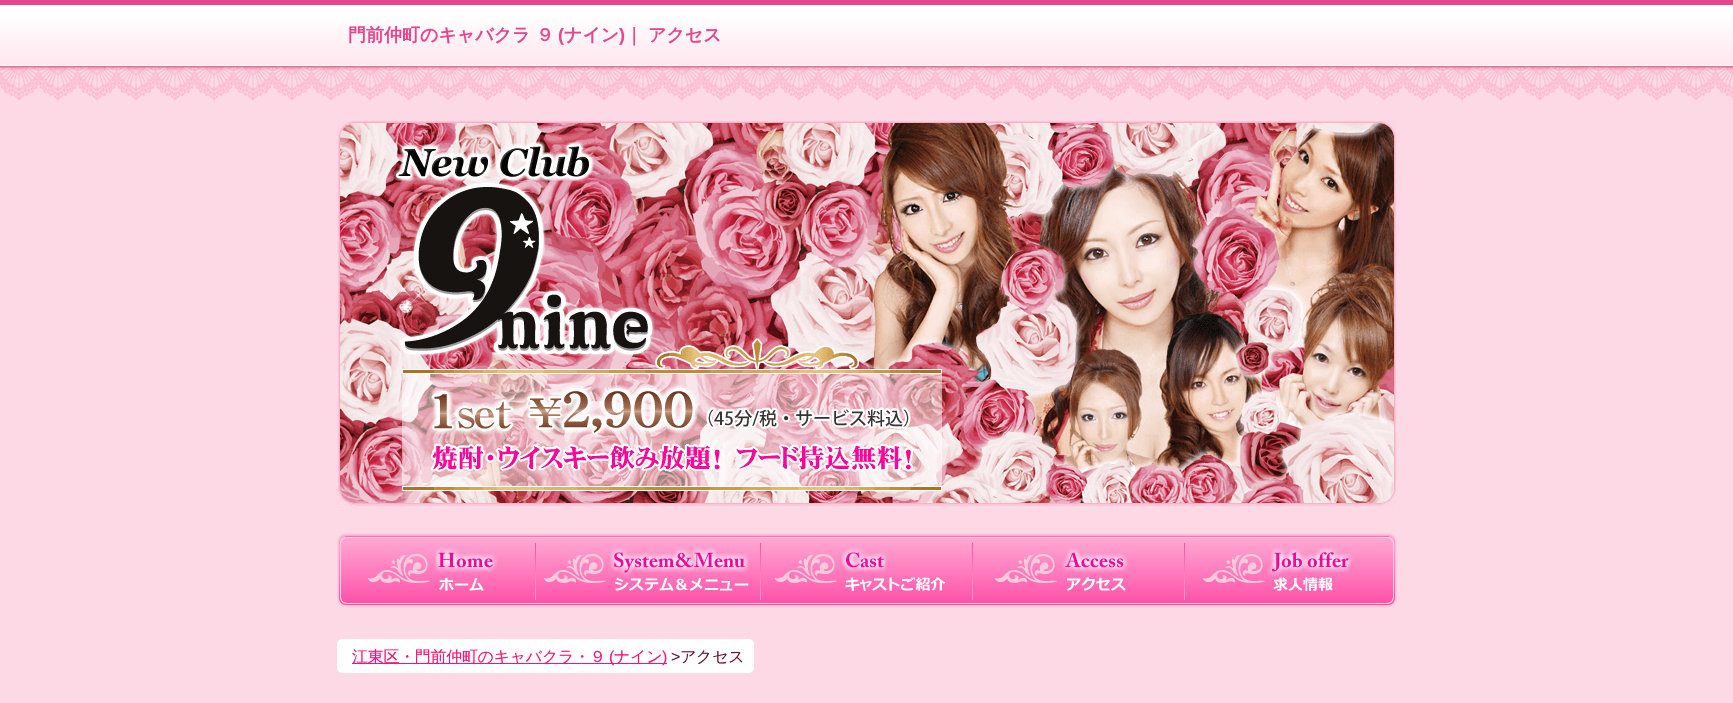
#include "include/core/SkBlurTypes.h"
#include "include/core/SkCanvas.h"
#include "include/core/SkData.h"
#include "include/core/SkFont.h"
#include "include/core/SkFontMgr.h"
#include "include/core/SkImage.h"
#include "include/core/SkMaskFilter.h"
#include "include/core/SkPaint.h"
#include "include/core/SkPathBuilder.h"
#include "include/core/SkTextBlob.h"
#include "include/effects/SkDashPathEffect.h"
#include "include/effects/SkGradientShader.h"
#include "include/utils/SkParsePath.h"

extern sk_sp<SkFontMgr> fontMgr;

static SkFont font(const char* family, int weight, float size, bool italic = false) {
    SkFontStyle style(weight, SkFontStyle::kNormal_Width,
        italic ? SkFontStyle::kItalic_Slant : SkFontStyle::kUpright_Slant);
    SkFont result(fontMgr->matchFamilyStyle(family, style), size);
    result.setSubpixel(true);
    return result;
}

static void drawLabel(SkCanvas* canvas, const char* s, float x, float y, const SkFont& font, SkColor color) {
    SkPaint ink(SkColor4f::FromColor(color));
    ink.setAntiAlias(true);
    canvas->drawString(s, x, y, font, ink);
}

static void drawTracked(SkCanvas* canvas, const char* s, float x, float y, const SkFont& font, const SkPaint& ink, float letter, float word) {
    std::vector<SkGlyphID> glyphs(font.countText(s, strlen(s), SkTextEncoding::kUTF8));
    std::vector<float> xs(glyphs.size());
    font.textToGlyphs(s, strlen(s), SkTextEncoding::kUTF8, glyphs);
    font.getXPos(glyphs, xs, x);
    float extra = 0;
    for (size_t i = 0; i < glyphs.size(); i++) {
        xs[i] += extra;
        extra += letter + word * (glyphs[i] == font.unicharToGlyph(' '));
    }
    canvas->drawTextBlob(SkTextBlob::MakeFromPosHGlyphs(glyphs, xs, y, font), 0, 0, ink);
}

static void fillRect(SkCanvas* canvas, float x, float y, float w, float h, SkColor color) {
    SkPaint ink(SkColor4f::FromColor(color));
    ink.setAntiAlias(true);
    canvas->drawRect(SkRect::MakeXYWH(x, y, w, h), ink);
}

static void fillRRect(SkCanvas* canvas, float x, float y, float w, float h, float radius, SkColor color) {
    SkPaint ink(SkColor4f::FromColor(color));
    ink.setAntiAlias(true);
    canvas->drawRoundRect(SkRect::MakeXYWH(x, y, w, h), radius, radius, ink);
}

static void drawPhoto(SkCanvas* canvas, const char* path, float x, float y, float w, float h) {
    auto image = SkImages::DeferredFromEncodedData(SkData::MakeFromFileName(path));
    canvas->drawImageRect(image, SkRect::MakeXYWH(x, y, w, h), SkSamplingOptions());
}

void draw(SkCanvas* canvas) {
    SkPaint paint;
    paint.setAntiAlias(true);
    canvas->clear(0xFFFDD9E5);
    drawPhoto(canvas, "assets/img1.png", 0, 0, 1733, 101);
    SkFont font1 = font("WenQuanYi Zen Hei", 700, 18);
    drawLabel(canvas, "門前仲町のキャバクラ ９", 348, 41, font1, 0xFFE9458E);
    SkFont font2 = font("Liberation Sans", 700, 18);
    drawLabel(canvas, "(", 558, 41, font2, 0xFFE9458E);
    drawLabel(canvas, "ナイン", 564, 41, font1, 0xFFE9458E);
    drawLabel(canvas, ")", 619, 41, font2, 0xFFE9458E);
    drawLabel(canvas, "｜ アクセス", 625, 41, font1, 0xFFE9458E);
    drawPhoto(canvas, "assets/img2.png", 337, 120, 1059, 388);
    drawPhoto(canvas, "assets/img3.png", 337, 533, 198, 75);
    drawPhoto(canvas, "assets/img4.png", 535, 533, 225, 75);
    drawPhoto(canvas, "assets/img5.png", 760, 533, 212, 75);
    drawPhoto(canvas, "assets/img6.png", 972, 533, 212, 75);
    drawPhoto(canvas, "assets/img7.png", 1184, 533, 213, 75);
    fillRRect(canvas, 337, 639, 417, 34, 5, 0xFFFFFFFF);
    fillRect(canvas, 352, 663, 315, 1, 0xFFFE1276);
    SkFont font3 = font("WenQuanYi Zen Hei", 500, 16);
    paint.setColor(0xFFFE1276);
    drawTracked(canvas, "江東区・門前仲町のキャバクラ・９", 352, 662, font3, paint, -0.3f, 0);
    SkFont font4 = font("Liberation Sans", 400, 16);
    drawTracked(canvas, "(", 609, 662, font4, paint, -0.3f, 0);
    drawTracked(canvas, "ナイン", 614, 662, font3, paint, -0.3f, 0);
    drawTracked(canvas, ")", 662, 662, font4, paint, -0.3f, 0);
    paint.setColor(0xFF651536);
    drawTracked(canvas, ">", 671, 662, font4, paint, -0.3f, 0);
    drawTracked(canvas, "アクセス", 680, 662, font3, paint, -0.3f, 0);
}
